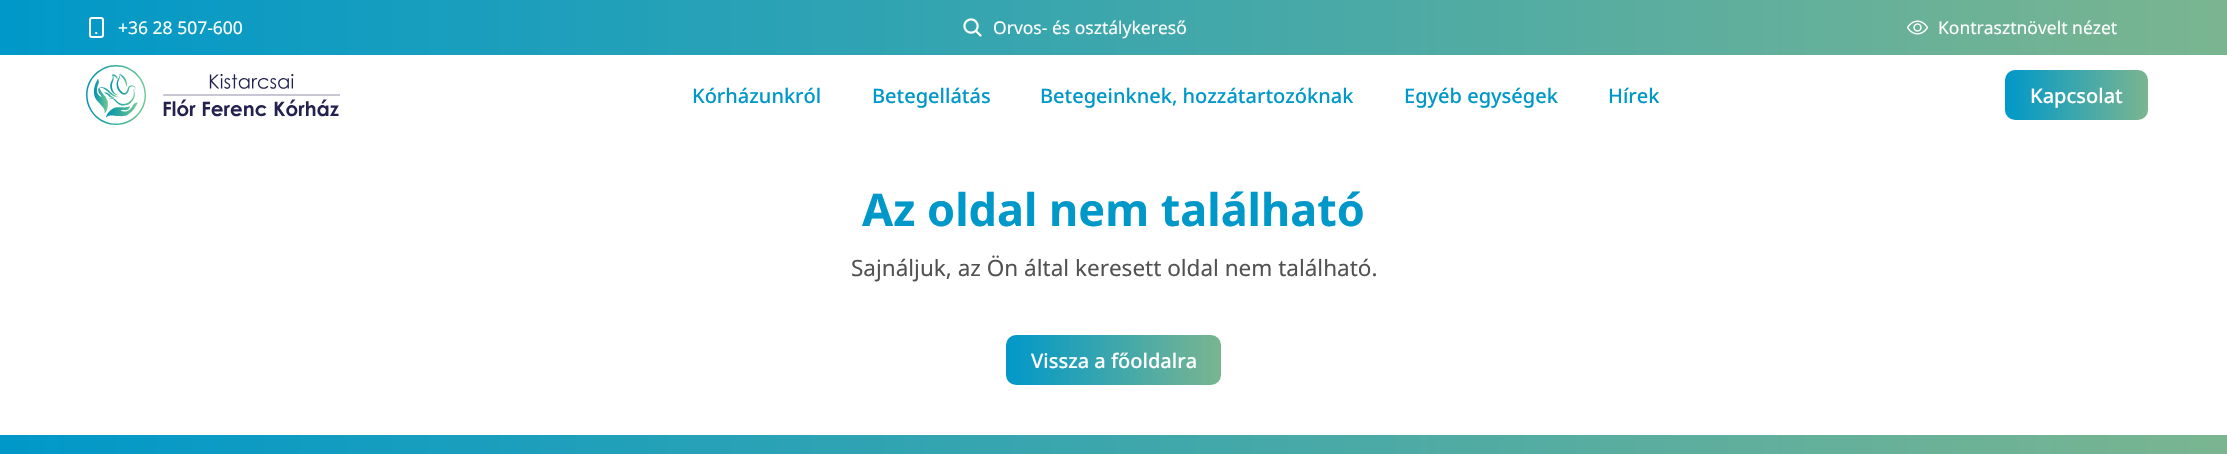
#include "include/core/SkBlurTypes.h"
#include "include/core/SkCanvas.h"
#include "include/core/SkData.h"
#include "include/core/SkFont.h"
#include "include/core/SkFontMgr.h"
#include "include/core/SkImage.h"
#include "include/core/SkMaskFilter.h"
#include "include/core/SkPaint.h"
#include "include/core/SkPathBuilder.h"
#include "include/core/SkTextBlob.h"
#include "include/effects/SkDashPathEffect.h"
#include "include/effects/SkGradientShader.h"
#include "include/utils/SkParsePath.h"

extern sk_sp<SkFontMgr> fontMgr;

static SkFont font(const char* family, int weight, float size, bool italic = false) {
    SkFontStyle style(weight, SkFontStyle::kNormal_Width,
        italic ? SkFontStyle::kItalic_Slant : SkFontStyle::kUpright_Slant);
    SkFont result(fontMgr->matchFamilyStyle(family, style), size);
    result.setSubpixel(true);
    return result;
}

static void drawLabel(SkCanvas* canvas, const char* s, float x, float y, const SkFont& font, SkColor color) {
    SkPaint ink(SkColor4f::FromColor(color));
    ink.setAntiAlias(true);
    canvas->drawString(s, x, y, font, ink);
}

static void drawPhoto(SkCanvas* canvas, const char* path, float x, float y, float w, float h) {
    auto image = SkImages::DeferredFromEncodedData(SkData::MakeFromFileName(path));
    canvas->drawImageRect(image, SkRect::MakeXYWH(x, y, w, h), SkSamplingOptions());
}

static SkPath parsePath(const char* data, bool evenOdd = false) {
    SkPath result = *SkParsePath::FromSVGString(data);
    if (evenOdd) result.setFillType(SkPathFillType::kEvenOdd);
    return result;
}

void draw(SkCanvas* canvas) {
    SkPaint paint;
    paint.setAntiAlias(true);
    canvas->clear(0xFFFFFFFF);
    {
        const SkColor colors[] = {0xFF0098C9, 0xFF7AB590};
        const float stops[] = {0, 1};
        const SkPoint ends[] = {{0, 28}, {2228, 27}};
        paint.setShader(SkGradientShader::MakeLinear(ends, colors, stops, 2, SkTileMode::kClamp));
        paint.setAlpha(255);
    }
    canvas->drawRect(SkRect::MakeXYWH(0, 0, 2227, 55), paint);
    paint.setStroke(true);
    paint.setStrokeWidth(2);
    paint.setShader(nullptr);
    paint.setColor(0xFFFFFFFF);
    canvas->drawRoundRect(SkRect::MakeXYWH(90, 18, 13, 19), 2, 2, paint);
    paint.setStrokeWidth(1.9f);
    paint.setStrokeCap(SkPaint::kRound_Cap);
    paint.setStrokeJoin(SkPaint::kRound_Join);
    canvas->drawPath(parsePath("M96 33H96.5"), paint);
    SkFont font1 = font("Noto Sans", 400, 17.5f);
    drawLabel(canvas, "+36 28 507-600", 118, 34, font1, 0xFFFFFFFF);
    drawPhoto(canvas, "assets/img1.png", 963, 18, 19, 19);
    drawLabel(canvas, "Orvos- és osztálykereső", 993, 34, font1, 0xFFFFFFFF);
    drawPhoto(canvas, "assets/img2.png", 1907, 20, 21, 15);
    drawLabel(canvas, "Kontrasztnövelt nézet", 1938, 34, font1, 0xFFFFFFFF);
    drawPhoto(canvas, "assets/img3.png", 86, 65, 254, 60);
    SkFont font2 = font("Noto Sans", 500, 20);
    drawLabel(canvas, "Kórházunkról", 692, 103, font2, 0xFF0098C9);
    drawLabel(canvas, "Betegellátás", 872, 103, font2, 0xFF0098C9);
    drawLabel(canvas, "Betegeinknek, hozzátartozóknak", 1040, 103, font2, 0xFF0098C9);
    drawLabel(canvas, "Egyéb egységek", 1404, 103, font2, 0xFF0098C9);
    drawLabel(canvas, "Hírek", 1608, 103, font2, 0xFF0098C9);
    paint.setStroke(false);
    {
        const SkColor colors[] = {0xFF0098C9, 0xFF7AB590};
        const float stops[] = {0, 1};
        const SkPoint ends[] = {{2005, 95}, {2148, 95}};
        paint.setShader(SkGradientShader::MakeLinear(ends, colors, stops, 2, SkTileMode::kClamp));
        paint.setAlpha(255);
    }
    canvas->drawRoundRect(SkRect::MakeXYWH(2005, 70, 143, 50), 10, 10, paint);
    drawLabel(canvas, "Kapcsolat", 2030, 103, font2, 0xFFFFFFFF);
    SkFont font3 = font("Noto Sans", 700, 45);
    drawLabel(canvas, "Az oldal nem található", 862, 226, font3, 0xFF0098C9);
    SkFont font4 = font("Noto Sans", 400, 22.5f);
    drawLabel(canvas, "Sajnáljuk, az Ön által keresett oldal nem található.", 851, 276, font4, 0xFF525252);
    {
        const SkColor colors[] = {0xFF0098C9, 0xFF7AB590};
        const float stops[] = {0, 1};
        const SkPoint ends[] = {{1006, 360}, {1221, 360}};
        paint.setShader(SkGradientShader::MakeLinear(ends, colors, stops, 2, SkTileMode::kClamp));
        paint.setAlpha(255);
    }
    canvas->drawRoundRect(SkRect::MakeXYWH(1006, 335, 215, 50), 10, 10, paint);
    drawLabel(canvas, "Vissza a főoldalra", 1031, 368, font2, 0xFFFFFFFF);
    {
        const SkColor colors[] = {0xFF0098C9, 0xFF7AB590};
        const float stops[] = {0, 1};
        const SkPoint ends[] = {{0, 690}, {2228, 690}};
        paint.setShader(SkGradientShader::MakeLinear(ends, colors, stops, 2, SkTileMode::kClamp));
        paint.setAlpha(255);
    }
    canvas->drawRect(SkRect::MakeXYWH(0, 435, 2227, 19), paint);
}
